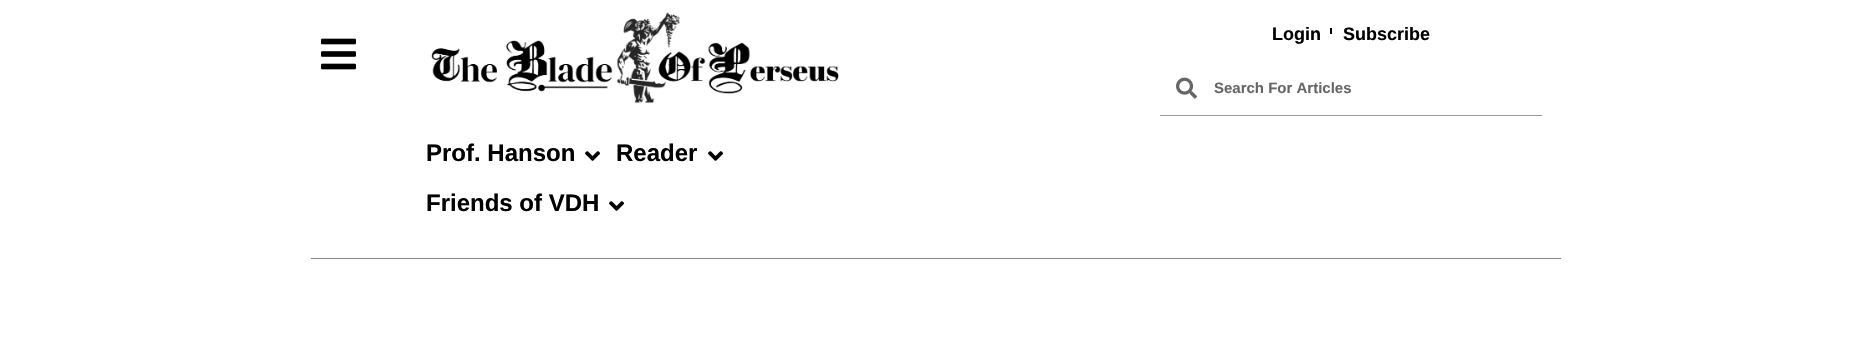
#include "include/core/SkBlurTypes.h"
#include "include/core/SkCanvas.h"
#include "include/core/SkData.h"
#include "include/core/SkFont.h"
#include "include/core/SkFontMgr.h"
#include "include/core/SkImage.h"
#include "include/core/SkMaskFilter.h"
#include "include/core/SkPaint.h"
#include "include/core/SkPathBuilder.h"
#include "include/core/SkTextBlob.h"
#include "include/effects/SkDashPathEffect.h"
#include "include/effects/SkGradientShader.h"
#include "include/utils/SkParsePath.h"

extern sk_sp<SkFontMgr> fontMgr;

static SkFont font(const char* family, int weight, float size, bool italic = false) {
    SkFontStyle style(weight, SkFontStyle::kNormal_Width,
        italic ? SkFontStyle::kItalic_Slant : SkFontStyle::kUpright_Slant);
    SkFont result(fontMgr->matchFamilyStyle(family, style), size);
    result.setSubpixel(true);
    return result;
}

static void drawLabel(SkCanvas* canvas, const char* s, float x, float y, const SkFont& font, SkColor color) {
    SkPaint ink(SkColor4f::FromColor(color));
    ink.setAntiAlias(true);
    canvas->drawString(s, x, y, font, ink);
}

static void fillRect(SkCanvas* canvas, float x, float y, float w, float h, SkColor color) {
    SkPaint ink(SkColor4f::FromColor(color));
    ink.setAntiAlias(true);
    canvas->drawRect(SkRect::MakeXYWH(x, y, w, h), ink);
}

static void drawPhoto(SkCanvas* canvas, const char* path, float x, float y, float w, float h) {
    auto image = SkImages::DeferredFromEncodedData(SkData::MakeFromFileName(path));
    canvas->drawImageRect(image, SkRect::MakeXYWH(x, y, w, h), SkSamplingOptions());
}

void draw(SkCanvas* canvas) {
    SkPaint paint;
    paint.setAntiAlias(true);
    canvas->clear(0xFFFFFFFF);
    drawPhoto(canvas, "assets/img1.png", 321, 38, 35, 32);
    drawPhoto(canvas, "assets/img2.png", 431, 12, 408, 92);
    SkFont font1 = font("Liberation Sans", 700, 18);
    drawLabel(canvas, "Login", 1272, 40, font1, 0xFF000000);
    fillRect(canvas, 1330, 28, 2, 6, 0xFF000000);
    drawLabel(canvas, "Subscribe", 1343, 40, font1, 0xFF000000);
    fillRect(canvas, 1160, 115, 382, 1, 0xFF9C9898);
    drawPhoto(canvas, "assets/img3.png", 1176, 77, 21, 22);
    SkFont font2 = font("Liberation Sans", 700, 15);
    drawLabel(canvas, "Search For Articles", 1214, 93, font2, 0xFF666666);
    fillRect(canvas, 311, 258, 1250, 1, 0xFF868686);
    SkFont font3 = font("Liberation Sans", 700, 24);
    drawLabel(canvas, "Prof. Hanson", 426, 161, font3, 0xFF000000);
    drawPhoto(canvas, "assets/img4.png", 585, 151, 15, 10);
    drawLabel(canvas, "Reader", 616, 161, font3, 0xFF000000);
    drawPhoto(canvas, "assets/img4.png", 708, 151, 15, 10);
    drawLabel(canvas, "Friends of VDH", 426, 211, font3, 0xFF000000);
    drawPhoto(canvas, "assets/img4.png", 609, 201, 15, 10);
}
